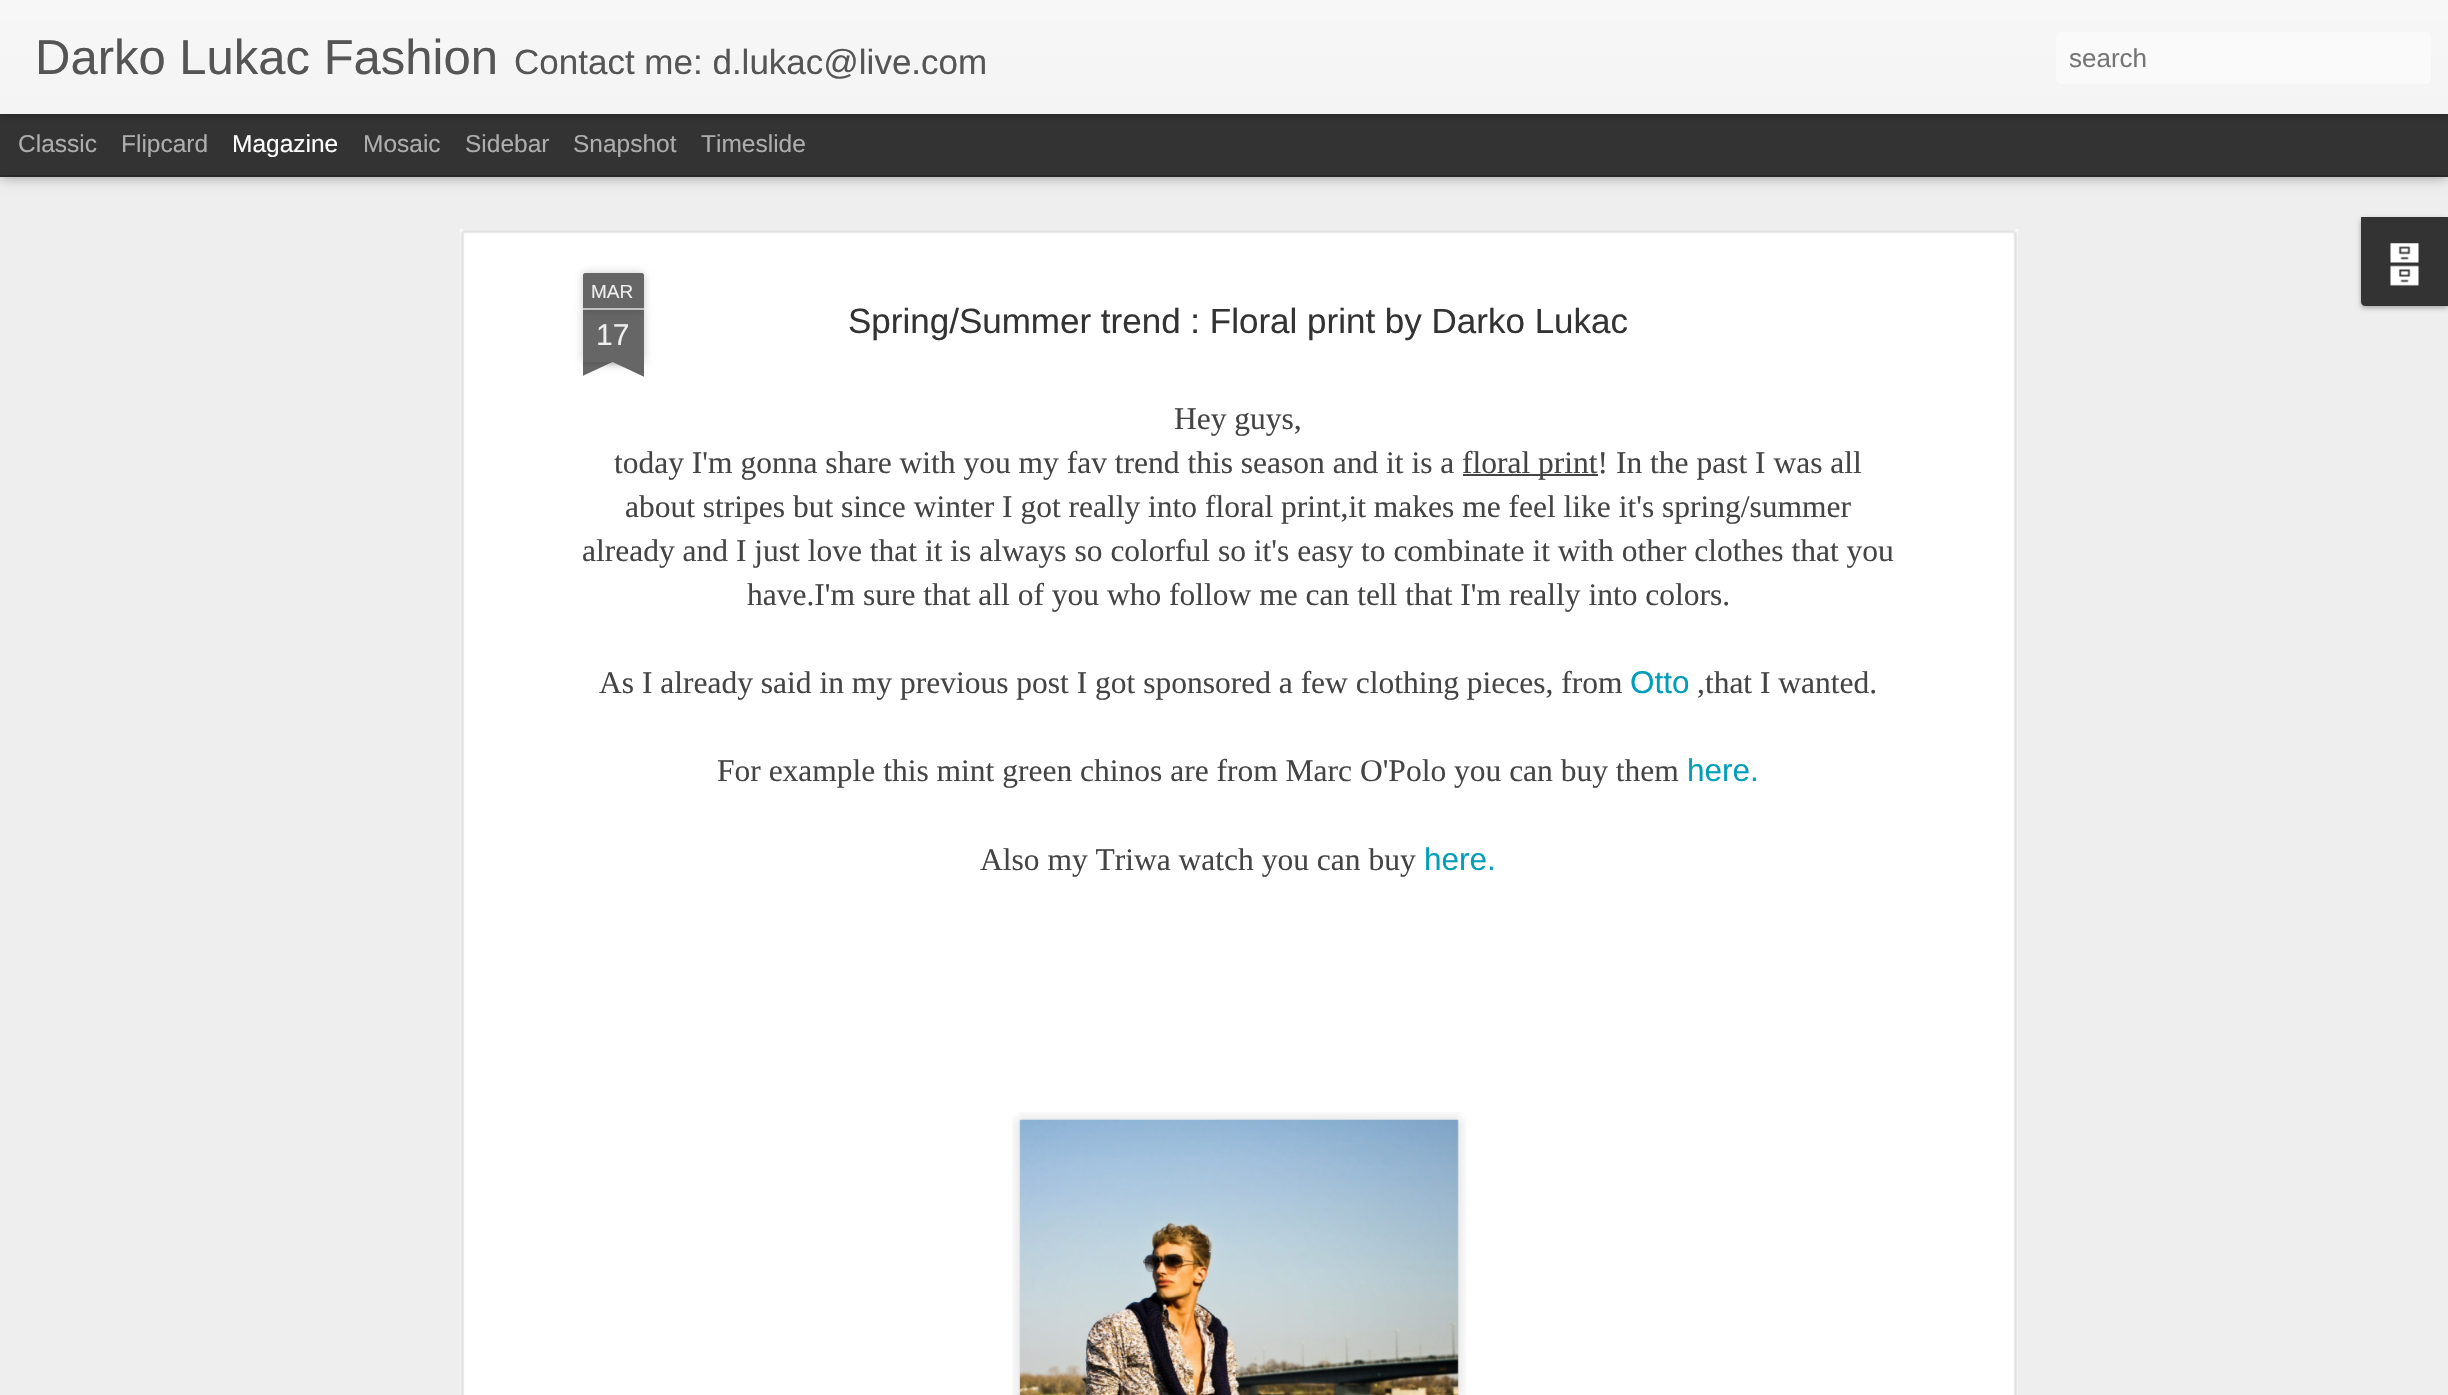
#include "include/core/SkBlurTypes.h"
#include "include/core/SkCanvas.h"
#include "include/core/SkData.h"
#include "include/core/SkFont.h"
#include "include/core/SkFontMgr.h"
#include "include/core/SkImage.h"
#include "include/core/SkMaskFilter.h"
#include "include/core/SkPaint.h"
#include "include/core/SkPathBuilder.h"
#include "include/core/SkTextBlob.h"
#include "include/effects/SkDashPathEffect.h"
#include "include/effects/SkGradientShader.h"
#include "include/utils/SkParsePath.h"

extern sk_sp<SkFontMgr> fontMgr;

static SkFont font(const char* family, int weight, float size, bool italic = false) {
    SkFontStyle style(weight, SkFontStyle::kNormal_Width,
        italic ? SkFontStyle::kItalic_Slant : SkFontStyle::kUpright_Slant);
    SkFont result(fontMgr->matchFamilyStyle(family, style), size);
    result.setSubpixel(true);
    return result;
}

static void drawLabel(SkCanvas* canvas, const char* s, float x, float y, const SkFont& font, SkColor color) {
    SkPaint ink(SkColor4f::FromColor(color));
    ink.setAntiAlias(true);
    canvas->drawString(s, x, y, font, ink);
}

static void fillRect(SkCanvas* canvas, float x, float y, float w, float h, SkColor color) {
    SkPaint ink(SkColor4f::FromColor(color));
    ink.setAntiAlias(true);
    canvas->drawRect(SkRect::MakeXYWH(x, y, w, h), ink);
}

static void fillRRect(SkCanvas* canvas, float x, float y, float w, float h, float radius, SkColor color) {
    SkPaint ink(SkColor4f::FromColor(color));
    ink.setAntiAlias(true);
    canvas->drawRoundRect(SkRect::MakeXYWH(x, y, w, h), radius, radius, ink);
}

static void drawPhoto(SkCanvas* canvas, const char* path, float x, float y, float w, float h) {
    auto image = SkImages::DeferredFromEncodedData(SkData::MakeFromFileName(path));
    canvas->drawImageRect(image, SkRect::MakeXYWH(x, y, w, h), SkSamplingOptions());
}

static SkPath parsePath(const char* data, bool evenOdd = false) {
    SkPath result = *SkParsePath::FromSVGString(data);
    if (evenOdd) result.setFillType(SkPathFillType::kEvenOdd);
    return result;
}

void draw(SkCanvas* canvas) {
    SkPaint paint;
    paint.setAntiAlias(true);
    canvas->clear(0xFF333333);
    fillRect(canvas, 0, 177, 2448, 1218, 0xFFEEEEEE);
    paint.setColor(0x80000000);
    paint.setMaskFilter(SkMaskFilter::MakeBlur(kNormal_SkBlurStyle, 7));
    canvas->drawRect(SkRect::MakeXYWH(0, 114, 2448, 61), paint);
    paint.setMaskFilter(nullptr);
    fillRect(canvas, 0, 114, 2448, 61, 0xFF333333);
    paint.setColor(0x4D000000);
    paint.setMaskFilter(SkMaskFilter::MakeBlur(kNormal_SkBlurStyle, 4.5f));
    canvas->drawRect(SkRect::MakeXYWH(0, 0, 2448, 114), paint);
    paint.setMaskFilter(nullptr);
    {
        const SkColor colors[] = {0xFFF7F7F7, 0xFFF4F4F4};
        const float stops[] = {0, 1};
        const SkPoint ends[] = {{0, 0}, {0, 114}};
        paint.setShader(SkGradientShader::MakeLinear(ends, colors, stops, 2, SkTileMode::kClamp));
        paint.setAlpha(255);
    }
    canvas->drawRect(SkRect::MakeXYWH(0, 0, 2448, 114), paint);
    SkFont font1 = font("Liberation Sans", 400, 49);
    drawLabel(canvas, "Darko Lukac Fashion", 35, 74, font1, 0xFF555555);
    SkFont font2 = font("Liberation Sans", 400, 35);
    drawLabel(canvas, "Contact me: d.lukac@live.com", 514, 74, font2, 0xFF555555);
    fillRRect(canvas, 2056, 32, 375, 52, 5, 0xFFFAFAFA);
    SkFont font3 = font("Liberation Sans", 400, 26);
    drawLabel(canvas, "search", 2069, 67, font3, 0xFF757575);
    SkFont font4 = font("Liberation Sans", 400, 24.5f);
    drawLabel(canvas, "Classic", 18, 152, font4, 0xFFADADAD);
    drawLabel(canvas, "Flipcard", 121, 152, font4, 0xFFADADAD);
    drawLabel(canvas, "Magazine", 232, 152, font4, 0xFFFFFFFF);
    drawLabel(canvas, "Mosaic", 363, 152, font4, 0xFFADADAD);
    drawLabel(canvas, "Sidebar", 465, 152, font4, 0xFFADADAD);
    drawLabel(canvas, "Snapshot", 573, 152, font4, 0xFFADADAD);
    drawLabel(canvas, "Timeslide", 701, 152, font4, 0xFFADADAD);
    paint.setShader(nullptr);
    paint.setColor(0x4D000000);
    paint.setMaskFilter(SkMaskFilter::MakeBlur(kNormal_SkBlurStyle, 2.5f));
    canvas->drawRoundRect(SkRect::MakeXYWH(2361, 219, 87, 89), 4, 4, paint);
    paint.setMaskFilter(nullptr);
    paint.setColor(0xFF333333);
    canvas->drawPath(parsePath("M2361 217H2448V306H2365C2363 306 2361 304 2361 302Z"), paint);
    drawPhoto(canvas, "assets/img1.png", 2390, 243, 29, 43);
    fillRect(canvas, 460, 229, 1558, 1166, 0xFFFFFFFF);
    drawPhoto(canvas, "assets/img2.png", 460, 229, 1558, 1166);
    paint.setColor(0x33000000);
    paint.setMaskFilter(SkMaskFilter::MakeBlur(kNormal_SkBlurStyle, 4.5f));
    canvas->drawRect(SkRect::MakeXYWH(583, 310, 61, 52), paint);
    paint.setMaskFilter(nullptr);
    fillRect(canvas, 583, 310, 61, 52, 0xFF666666);
    paint.setMaskFilter(SkMaskFilter::MakeBlur(kNormal_SkBlurStyle, 4.5f));
    canvas->drawRoundRect(SkRect::MakeXYWH(583, 273, 61, 37), 2, 2, paint);
    paint.setMaskFilter(nullptr);
    paint.setColor(0xFF666666);
    canvas->drawPath(parsePath("M585 273H642C643 273 644 274 644 275V310H583V275C583 274 584 273 585 273Z"), paint);
    fillRect(canvas, 583, 308, 61, 2, 0xFFC2C2C2);
    SkFont font5 = font("Liberation Sans", 400, 19);
    drawLabel(canvas, "MAR", 591, 298, font5, 0xFFEEEEEE);
    SkFont font6 = font("Liberation Sans", 400, 30);
    drawLabel(canvas, "17", 596, 345, font6, 0xFFEEEEEE);
    canvas->save();
    canvas->clipRect(SkRect::MakeXYWH(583, 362, 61, 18));
    paint.setColor(0x33000000);
    paint.setMaskFilter(SkMaskFilter::MakeBlur(kNormal_SkBlurStyle, 4.5f));
    canvas->drawRect(SkRect::MakeXYWH(567, 345, 88, 17), paint);
    paint.setMaskFilter(nullptr);
    canvas->restore();
    canvas->save();
    canvas->clipRect(SkRect::MakeXYWH(583, 362, 61, 18));
    paint.setColor(0xFF666666);
    canvas->drawPath(parsePath("M567 364L646 327L653 343L574 380Z"), paint);
    canvas->restore();
    canvas->save();
    canvas->clipRect(SkRect::MakeXYWH(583, 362, 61, 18));
    paint.setColor(0x33000000);
    paint.setMaskFilter(SkMaskFilter::MakeBlur(kNormal_SkBlurStyle, 4.5f));
    canvas->drawRect(SkRect::MakeXYWH(572, 345, 88, 17), paint);
    paint.setMaskFilter(nullptr);
    canvas->restore();
    canvas->save();
    canvas->clipRect(SkRect::MakeXYWH(583, 362, 61, 18));
    paint.setColor(0xFF666666);
    canvas->drawPath(parsePath("M579 327L658 364L651 380L572 343Z"), paint);
    canvas->restore();
    drawLabel(canvas, "Spring/Summer trend : Floral print by Darko Lukac", 848, 333, font2, 0xFF333333);
    SkFont font7 = font("Liberation Serif", 400, 31.5f);
    drawLabel(canvas, "Hey guys,", 1174, 429, font7, 0xFF444444);
    drawLabel(canvas, "today I'm gonna share with you my fav trend this season and it is a", 614, 473, font7, 0xFF444444);
    fillRect(canvas, 1463, 474, 135, 2, 0xFF444444);
    drawLabel(canvas, "floral print! In the past I was all", 1462, 473, font7, 0xFF444444);
    drawLabel(canvas, "about stripes but since winter I got really into floral print,it makes me feel like it's spring/summer", 625, 517, font7, 0xFF444444);
    drawLabel(canvas, "already and I just love that it is always so colorful so it's easy to combinate it with other clothes that you", 582, 561, font7, 0xFF444444);
    drawLabel(canvas, "have.I'm sure that all of you who follow me can tell that I'm really into colors.", 747, 605, font7, 0xFF444444);
    drawLabel(canvas, "As I already said in my previous post I got sponsored a few clothing pieces, from", 599, 693, font7, 0xFF444444);
    SkFont font8 = font("Liberation Sans", 400, 31.5f);
    drawLabel(canvas, "Otto", 1630, 693, font8, 0xFF009EB8);
    drawLabel(canvas, ",that I wanted.", 1697, 693, font7, 0xFF444444);
    drawLabel(canvas, "For example this mint green chinos are from Marc O'Polo you can buy them", 717, 781, font7, 0xFF444444);
    drawLabel(canvas, "here.", 1687, 781, font8, 0xFF009EB8);
    drawLabel(canvas, "Also my Triwa watch you can buy", 980, 870, font7, 0xFF444444);
    drawLabel(canvas, "here.", 1424, 870, font8, 0xFF009EB8);
    drawPhoto(canvas, "assets/img3.png", 1012, 1112, 454, 283);
    drawPhoto(canvas, "assets/img4.png", 1020, 1120, 439, 275);
}
